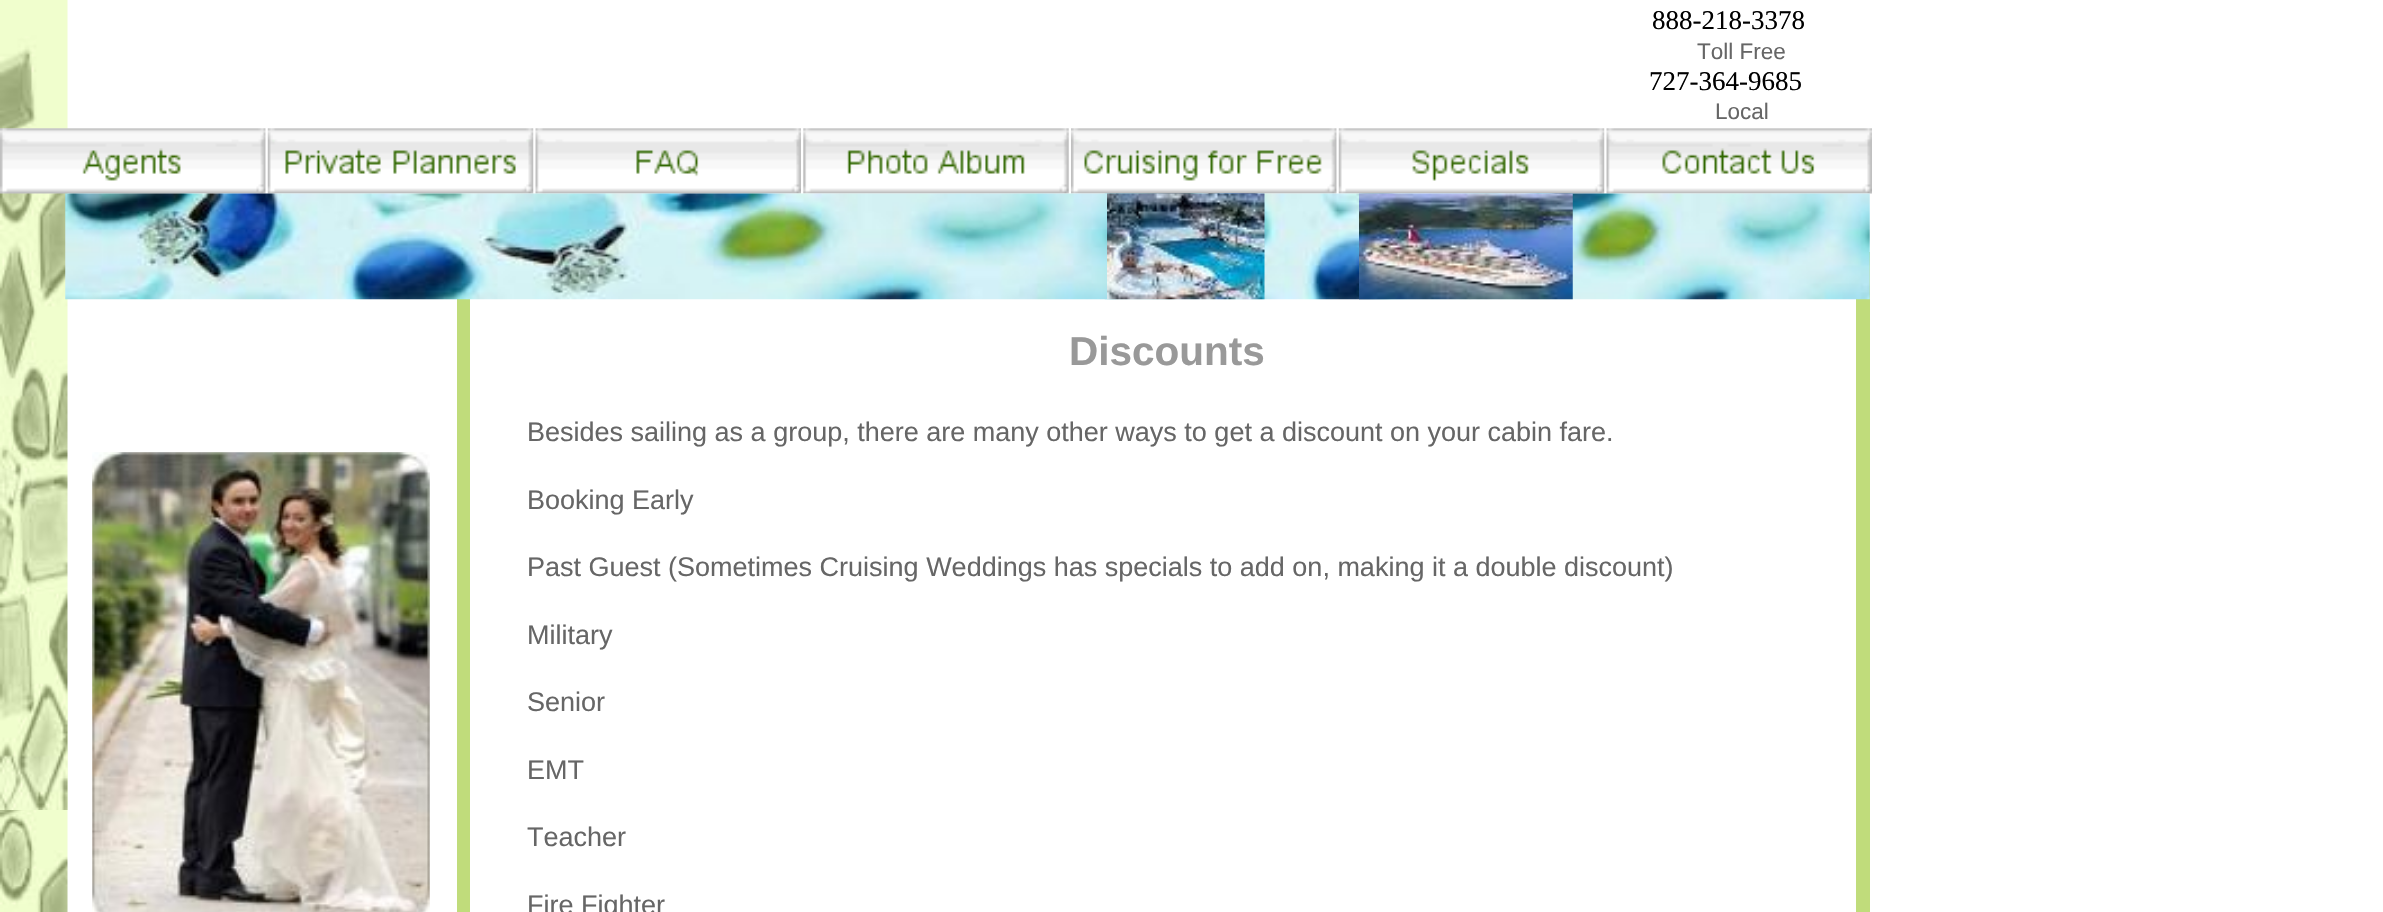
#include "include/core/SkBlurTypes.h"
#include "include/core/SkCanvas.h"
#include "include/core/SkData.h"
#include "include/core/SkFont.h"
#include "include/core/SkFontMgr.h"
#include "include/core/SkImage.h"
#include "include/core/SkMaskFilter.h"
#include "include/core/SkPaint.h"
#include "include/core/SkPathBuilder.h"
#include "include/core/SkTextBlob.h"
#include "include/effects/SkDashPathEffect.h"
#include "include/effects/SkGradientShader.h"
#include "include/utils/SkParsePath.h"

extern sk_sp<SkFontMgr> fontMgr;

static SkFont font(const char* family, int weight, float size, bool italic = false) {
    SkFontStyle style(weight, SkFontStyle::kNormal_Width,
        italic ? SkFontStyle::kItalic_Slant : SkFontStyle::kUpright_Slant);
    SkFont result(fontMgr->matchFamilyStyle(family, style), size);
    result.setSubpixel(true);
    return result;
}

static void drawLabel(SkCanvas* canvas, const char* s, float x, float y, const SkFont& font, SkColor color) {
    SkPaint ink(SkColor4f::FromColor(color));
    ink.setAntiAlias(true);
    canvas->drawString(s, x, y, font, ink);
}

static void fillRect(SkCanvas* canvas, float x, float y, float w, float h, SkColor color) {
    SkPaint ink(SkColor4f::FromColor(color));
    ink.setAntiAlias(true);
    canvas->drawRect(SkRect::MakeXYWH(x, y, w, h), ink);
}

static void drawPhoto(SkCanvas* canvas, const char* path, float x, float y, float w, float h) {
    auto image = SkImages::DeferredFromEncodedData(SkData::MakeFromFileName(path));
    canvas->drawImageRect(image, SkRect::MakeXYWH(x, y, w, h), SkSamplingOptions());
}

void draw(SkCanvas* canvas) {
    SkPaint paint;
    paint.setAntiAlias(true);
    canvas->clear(0xFFFFFFFF);
    drawPhoto(canvas, "assets/img13.png", 0, 688, 68, 224);
    drawPhoto(canvas, "assets/img1.png", 0, 0, 68, 810);
    SkFont font1 = font("Liberation Serif", 400, 27);
    drawLabel(canvas, "888-218-3378", 1652, 29, font1, 0xFF000000);
    SkFont font2 = font("Liberation Sans", 400, 22.5f);
    drawLabel(canvas, "Toll Free", 1697, 59, font2, 0xFF666666);
    drawLabel(canvas, "727-364-9685", 1649, 90, font1, 0xFF000000);
    drawLabel(canvas, "Local", 1715, 119, font2, 0xFF666666);
    drawPhoto(canvas, "assets/img2.png", 0, 128, 266, 66);
    drawPhoto(canvas, "assets/img3.png", 267, 128, 267, 66);
    drawPhoto(canvas, "assets/img4.png", 535, 128, 266, 66);
    drawPhoto(canvas, "assets/img5.png", 803, 128, 266, 66);
    drawPhoto(canvas, "assets/img6.png", 1071, 128, 266, 66);
    drawPhoto(canvas, "assets/img7.png", 1338, 128, 267, 66);
    drawPhoto(canvas, "assets/img8.png", 1606, 128, 266, 66);
    fillRect(canvas, 1856, 252, 14, 660, 0xFFC0DC7B);
    drawPhoto(canvas, "assets/img10.png", 1104, 193, 766, 107);
    fillRect(canvas, 457, 299, 13, 613, 0xFFC0DC7B);
    drawPhoto(canvas, "assets/img9.png", 65, 193, 1051, 107);
    drawPhoto(canvas, "assets/img11.png", 1107, 193, 158, 107);
    drawPhoto(canvas, "assets/img12.png", 1359, 193, 214, 107);
    SkFont font3 = font("Liberation Sans", 700, 40.5f);
    drawLabel(canvas, "Discounts", 1069, 365, font3, 0xFF999999);
    drawPhoto(canvas, "assets/img14.png", 92, 452, 338, 460);
    SkFont font4 = font("Liberation Sans", 400, 27);
    drawLabel(canvas, "Besides sailing as a group, there are many other ways to get a discount on your cabin fare.", 527, 441, font4, 0xFF666666);
    drawLabel(canvas, "Booking Early", 527, 509, font4, 0xFF666666);
    drawLabel(canvas, "Past Guest (Sometimes Cruising Weddings has specials to add on, making it a double discount)", 527, 576, font4, 0xFF666666);
    drawLabel(canvas, "Military", 527, 644, font4, 0xFF666666);
    drawLabel(canvas, "Senior", 527, 711, font4, 0xFF666666);
    drawLabel(canvas, "EMT", 527, 779, font4, 0xFF666666);
    drawLabel(canvas, "Teacher", 527, 846, font4, 0xFF666666);
    drawLabel(canvas, "Fire Fighter", 527, 914, font4, 0xFF666666);
}
